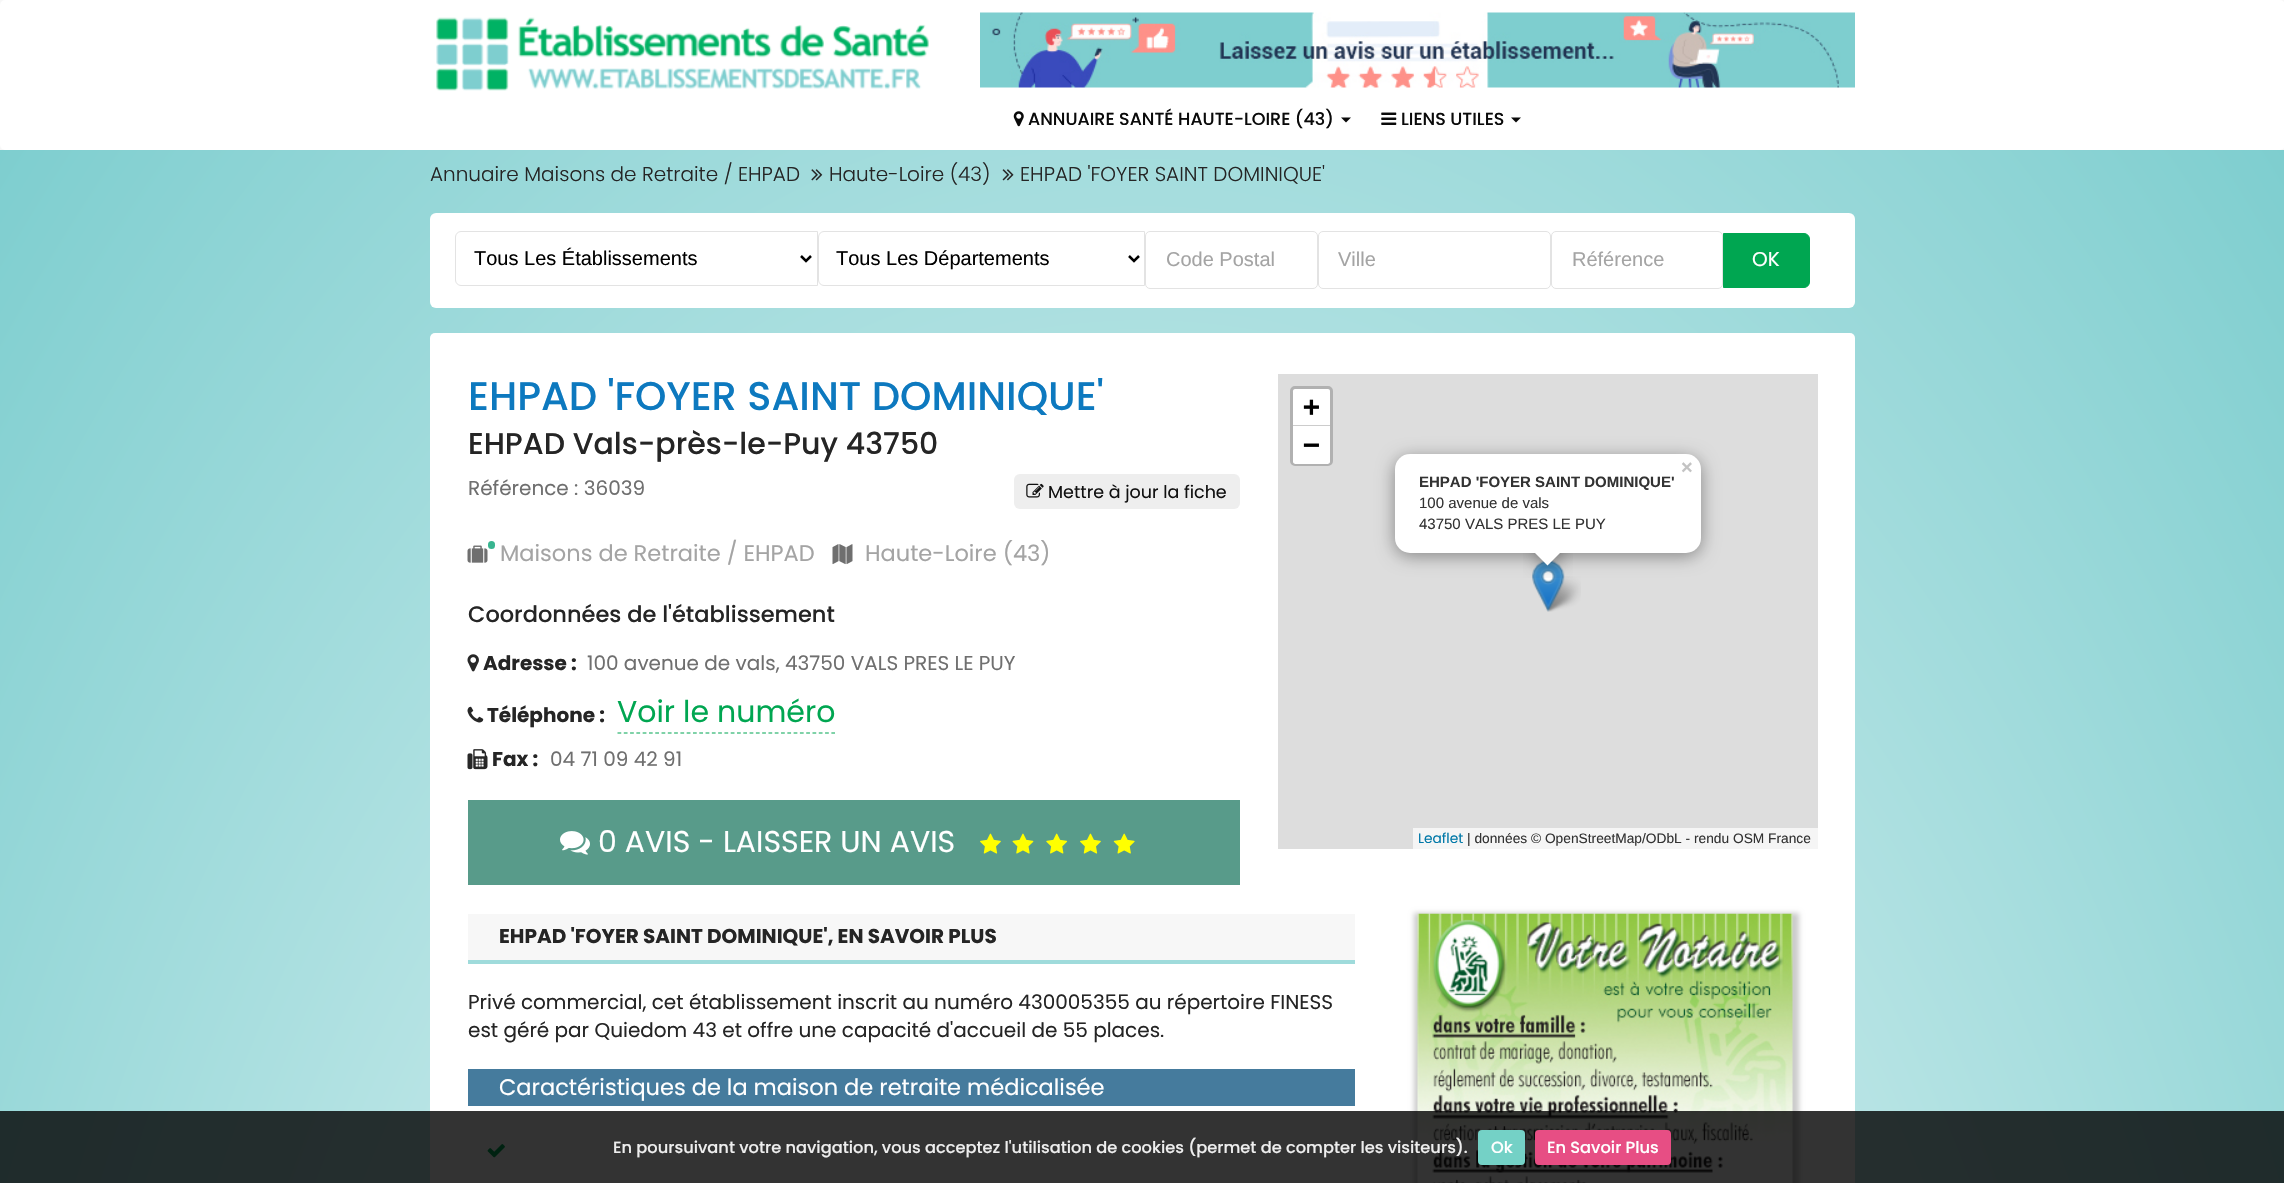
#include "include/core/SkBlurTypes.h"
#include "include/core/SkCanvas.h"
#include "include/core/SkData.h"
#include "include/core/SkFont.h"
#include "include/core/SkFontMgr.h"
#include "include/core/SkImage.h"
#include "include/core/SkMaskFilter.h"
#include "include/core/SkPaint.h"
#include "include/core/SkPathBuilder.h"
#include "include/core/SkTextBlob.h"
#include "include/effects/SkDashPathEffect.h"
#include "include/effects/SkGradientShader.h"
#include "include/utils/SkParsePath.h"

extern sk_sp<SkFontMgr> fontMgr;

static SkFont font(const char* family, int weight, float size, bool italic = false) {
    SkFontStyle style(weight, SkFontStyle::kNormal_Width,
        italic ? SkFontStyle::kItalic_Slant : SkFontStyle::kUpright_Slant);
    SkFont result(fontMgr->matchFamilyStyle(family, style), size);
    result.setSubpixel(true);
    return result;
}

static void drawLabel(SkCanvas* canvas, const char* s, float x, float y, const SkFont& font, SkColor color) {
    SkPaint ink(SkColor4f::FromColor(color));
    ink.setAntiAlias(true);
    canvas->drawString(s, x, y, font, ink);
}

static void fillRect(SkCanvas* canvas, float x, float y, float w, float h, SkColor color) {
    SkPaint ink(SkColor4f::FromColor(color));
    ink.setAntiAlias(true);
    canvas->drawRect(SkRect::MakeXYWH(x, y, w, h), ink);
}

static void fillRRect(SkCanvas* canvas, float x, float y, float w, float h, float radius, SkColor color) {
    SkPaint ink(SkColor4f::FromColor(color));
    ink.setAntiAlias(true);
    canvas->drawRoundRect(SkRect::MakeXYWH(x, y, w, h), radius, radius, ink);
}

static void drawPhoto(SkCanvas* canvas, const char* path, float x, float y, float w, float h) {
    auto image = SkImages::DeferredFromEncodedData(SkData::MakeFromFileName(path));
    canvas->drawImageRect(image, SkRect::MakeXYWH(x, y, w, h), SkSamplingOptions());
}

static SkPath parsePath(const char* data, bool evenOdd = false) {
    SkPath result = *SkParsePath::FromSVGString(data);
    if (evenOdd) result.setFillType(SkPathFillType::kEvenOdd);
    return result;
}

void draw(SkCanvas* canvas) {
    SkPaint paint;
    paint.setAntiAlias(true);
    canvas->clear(0xFFF7F7F7);
    fillRRect(canvas, 0, 0, 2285, 150, 5, 0xFFFFFFFF);
    drawPhoto(canvas, "assets/img1.png", 436, 17, 493, 74);
    drawPhoto(canvas, "assets/img2.png", 980, 12, 875, 76);
    drawPhoto(canvas, "assets/img3.png", 1013, 111, 11, 16);
    SkFont font1 = font("Poppins", 500, 17.5f);
    drawLabel(canvas, "ANNUAIRE SANTÉ HAUTE-LOIRE (43)", 1028, 125, font1, 0xFF0A0A0A);
    paint.setColor(0xFF0A0A0A);
    canvas->drawPath(parsePath("M1341 117.5H1351L1346 122.5Z"), paint);
    drawPhoto(canvas, "assets/img4.png", 1381, 112, 16, 13);
    drawLabel(canvas, "LIENS UTILES", 1401, 125, font1, 0xFF0A0A0A);
    canvas->drawPath(parsePath("M1511 117.5H1521L1516 122.5Z"), paint);
    {
        const SkColor colors[] = {0xFFFFFFFF, 0xFF7ECECF};
        const float stops[] = {0, 1};
        SkMatrix m = SkMatrix::Translate(1143, 2018).preScale(1616, 2641);
        paint.setShader(SkGradientShader::MakeRadial({0, 0}, 1, colors, stops, 2, SkTileMode::kClamp, 0, &m));
        paint.setAlpha(255);
    }
    canvas->drawRect(SkRect::MakeXYWH(0, 150, 2284, 1033), paint);
    SkFont font2 = font("Poppins", 300, 20);
    drawLabel(canvas, "Annuaire Maisons de Retraite / EHPAD", 430, 181, font2, 0xFF252525);
    drawPhoto(canvas, "assets/img5.png", 811, 169, 12, 12);
    drawLabel(canvas, "Haute-Loire (43)", 829, 181, font2, 0xFF252525);
    drawPhoto(canvas, "assets/img6.png", 1002, 169, 12, 12);
    drawLabel(canvas, "EHPAD 'FOYER SAINT DOMINIQUE'", 1020, 181, font2, 0xFF252525);
    fillRRect(canvas, 430, 213, 1425, 95, 6, 0xFFFFFFFF);
    paint.setStroke(true);
    paint.setStrokeWidth(1);
    paint.setShader(nullptr);
    paint.setColor(0xFFE3E3E3);
    canvas->drawPath(parsePath("M461 231.5H817.5V285.5H461C458 285.5 455.5 283 455.5 280V237C455.5 234 458 231.5 461 231.5Z"), paint);
    paint.setStrokeWidth(2.5f);
    paint.setColor(0xFF000000);
    canvas->drawPath(parsePath("M801 256L806 261L811 256"), paint);
    SkFont font3 = font("Liberation Sans", 400, 20);
    drawLabel(canvas, "Tous Les Établissements", 474, 265, font3, 0xFF000000);
    paint.setStrokeWidth(1);
    paint.setColor(0xFFE3E3E3);
    canvas->drawPath(parsePath("M824 231.5H1144.5V285.5H824C821 285.5 818.5 283 818.5 280V237C818.5 234 821 231.5 824 231.5Z"), paint);
    paint.setStrokeWidth(2.5f);
    paint.setColor(0xFF000000);
    canvas->drawPath(parsePath("M1129 256L1134 261L1139 256"), paint);
    drawLabel(canvas, "Tous Les Départements", 836, 265, font3, 0xFF000000);
    paint.setStrokeWidth(1);
    paint.setColor(0xFFE3E3E3);
    canvas->drawRoundRect(SkRect::MakeXYWH(1145.5f, 231.5f, 172, 57), 4.5f, 4.5f, paint);
    drawLabel(canvas, "Code Postal", 1166, 266, font3, 0xFFA4A4A4);
    canvas->drawRoundRect(SkRect::MakeXYWH(1318.5f, 231.5f, 232, 57), 4.5f, 4.5f, paint);
    drawLabel(canvas, "Ville", 1338, 266, font3, 0xFFA4A4A4);
    canvas->drawRoundRect(SkRect::MakeXYWH(1551.5f, 231.5f, 171, 57), 4.5f, 4.5f, paint);
    drawLabel(canvas, "Référence", 1572, 266, font3, 0xFFA4A4A4);
    paint.setStroke(false);
    paint.setColor(0xFF00A651);
    canvas->drawPath(parsePath("M1723.5 233.5H1804C1807 233.5 1809.5 236 1809.5 239V282C1809.5 285 1807 287.5 1804 287.5H1723.5Z"), paint);
    paint.setStroke(true);
    canvas->drawPath(parsePath("M1723.5 233.5H1804C1807 233.5 1809.5 236 1809.5 239V282C1809.5 285 1807 287.5 1804 287.5H1723.5Z"), paint);
    SkFont font4 = font("Poppins", 400, 20);
    drawLabel(canvas, "OK", 1752, 266, font4, 0xFFFFFFFF);
    fillRRect(canvas, 430, 333, 1425, 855, 5, 0xFFFFFFFF);
    SkFont font5 = font("Poppins", 500, 40);
    drawLabel(canvas, "EHPAD 'FOYER SAINT DOMINIQUE'", 468, 410, font5, 0xFF0D79BF);
    SkFont font6 = font("Poppins", 500, 30);
    drawLabel(canvas, "EHPAD Vals-près-le-Puy 43750", 468, 454, font6, 0xFF252525);
    drawLabel(canvas, "Référence : 36039", 468, 495, font4, 0xFF6F6F6F);
    fillRRect(canvas, 1014, 474, 226, 35, 6, 0xFFEEEEEE);
    drawPhoto(canvas, "assets/img7.png", 1026, 483, 18, 15);
    SkFont font7 = font("Poppins", 400, 17.5f);
    drawLabel(canvas, "Mettre à jour la fiche", 1048, 498, font7, 0xFF111111);
    drawPhoto(canvas, "assets/img8.png", 467, 545, 21, 18);
    fillRRect(canvas, 488, 541, 7, 8, 3.5f, 0xFF38B590);
    SkFont font8 = font("Poppins", 400, 22.5f);
    drawLabel(canvas, "Maisons de Retraite / EHPAD", 500, 561, font8, 0xFFA4A4A4);
    drawPhoto(canvas, "assets/img9.png", 832, 544, 21, 21);
    drawLabel(canvas, "Haute-Loire (43)", 865, 561, font8, 0xFFA4A4A4);
    SkFont font9 = font("Poppins", 500, 22.5f);
    drawLabel(canvas, "Coordonnées de l'établissement", 468, 622, font9, 0xFF252525);
    drawPhoto(canvas, "assets/img10.png", 467, 654, 12, 18);
    SkFont font10 = font("Poppins", 700, 20);
    drawLabel(canvas, "Adresse :", 483, 670, font10, 0xFF252525);
    drawLabel(canvas, "100 avenue de vals, 43750 VALS PRES LE PUY", 587, 670, font4, 0xFF6F6F6F);
    drawPhoto(canvas, "assets/img11.png", 467, 706, 17, 17);
    drawLabel(canvas, "Téléphone :", 487, 722, font10, 0xFF252525);
    SkFont font11 = font("Poppins", 400, 30);
    drawLabel(canvas, "Voir le numéro", 617, 722, font11, 0xFF00A651);
    paint.setStrokeWidth(1.2f);
    paint.setPathEffect(SkDashPathEffect::Make({{3.75f, 2.54f}}, 0));
    canvas->drawPath(parsePath("M617.5 733H835"), paint);
    paint.setPathEffect(nullptr);
    drawPhoto(canvas, "assets/img12.png", 467, 749, 21, 21);
    drawLabel(canvas, "Fax :", 492, 766, font10, 0xFF252525);
    drawLabel(canvas, "04 71 09 42 91", 550, 766, font4, 0xFF6F6F6F);
    fillRect(canvas, 468, 800, 772, 85, 0xFF589B8A);
    drawPhoto(canvas, "assets/img13.png", 560, 831, 30, 24);
    drawLabel(canvas, "0 AVIS - LAISSER UN AVIS", 598, 852, font11, 0xFFFFFFFF);
    drawPhoto(canvas, "assets/img14.png", 980, 833, 21, 21);
    drawPhoto(canvas, "assets/img15.png", 1012, 833, 22, 21);
    drawPhoto(canvas, "assets/img16.png", 1046, 833, 22, 21);
    drawPhoto(canvas, "assets/img14.png", 1080, 833, 21, 21);
    drawPhoto(canvas, "assets/img17.png", 1113, 833, 22, 21);
    fillRect(canvas, 1278, 374, 540, 475, 0xFFDDDDDD);
    paint.setStrokeWidth(3);
    paint.setColor(0xFFB1B1B1);
    canvas->drawRoundRect(SkRect::MakeXYWH(1291.5f, 387.5f, 40, 77), 3.5f, 3.5f, paint);
    paint.setStroke(false);
    paint.setColor(0xFFFFFFFF);
    canvas->drawPath(parsePath("M1295.5 389H1327.5C1329 389 1330 390 1330 391.5V426H1293V391.5C1293 390 1294 389 1295.5 389Z"), paint);
    fillRect(canvas, 1293, 425, 37, 1, 0xFFCCCCCC);
    SkFont font12 = font("DejaVu Sans Mono", 700, 28);
    drawLabel(canvas, "+", 1303, 416, font12, 0xFF000000);
    canvas->drawPath(parsePath("M1293 426H1330V461.5C1330 463 1329 464 1327.5 464H1295.5C1294 464 1293 463 1293 461.5Z"), paint);
    drawLabel(canvas, "−", 1303, 454, font12, 0xFF000000);
    fillRect(canvas, 1413, 828, 405, 21, 0xFFF5F5F5);
    SkFont font13 = font("Poppins", 400, 13.75f);
    drawLabel(canvas, "Leaflet", 1418, 843, font13, 0xFF0078A8);
    SkFont font14 = font("Liberation Sans", 400, 13.75f);
    drawLabel(canvas, "| données © OpenStreetMap/ODbL - rendu OSM France", 1467, 843, font14, 0xFF333333);
    drawPhoto(canvas, "assets/img19.png", 1543, 576, 38, 36);
    drawPhoto(canvas, "assets/img18.png", 1532, 560, 33, 52);
    paint.setColor(0x66000000);
    paint.setMaskFilter(SkMaskFilter::MakeBlur(kNormal_SkBlurStyle, 9));
    canvas->drawRoundRect(SkRect::MakeXYWH(1395, 458, 306, 98), 15, 15, paint);
    paint.setMaskFilter(nullptr);
    fillRRect(canvas, 1395, 454, 306, 99, 15, 0xFFFFFFFF);
    SkFont font15 = font("Liberation Sans", 700, 20);
    drawLabel(canvas, "×", 1681, 474, font15, 0xFFC3C3C3);
    SkFont font16 = font("Liberation Sans", 700, 15);
    drawLabel(canvas, "EHPAD 'FOYER SAINT DOMINIQUE'", 1419, 487, font16, 0xFF333333);
    SkFont font17 = font("Liberation Sans", 400, 15);
    drawLabel(canvas, "100 avenue de vals", 1419, 508, font17, 0xFF333333);
    drawLabel(canvas, "43750 VALS PRES LE PUY", 1419, 529, font17, 0xFF333333);
    canvas->save();
    canvas->clipRect(SkRect::MakeXYWH(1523, 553, 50, 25));
    paint.setMaskFilter(SkMaskFilter::MakeBlur(kNormal_SkBlurStyle, 9));
    canvas->drawRect(SkRect::MakeXYWH(1538, 544, 21, 21), paint);
    paint.setMaskFilter(nullptr);
    canvas->restore();
    canvas->save();
    canvas->clipRect(SkRect::MakeXYWH(1523, 553, 50, 25));
    paint.setColor(0xFFFFFFFF);
    canvas->drawPath(parsePath("M1547.5 535.5L1562.5 550.5L1547.5 565.5L1532.5 550.5Z"), paint);
    canvas->restore();
    fillRect(canvas, 468, 914, 887, 46, 0xFFF7F7F7);
    fillRect(canvas, 468, 960, 887, 4, 0xFF9FDBDB);
    drawLabel(canvas, "EHPAD 'FOYER SAINT DOMINIQUE', EN SAVOIR PLUS", 499, 943, font10, 0xFF252525);
    drawLabel(canvas, "Privé commercial, cet établissement inscrit au numéro 430005355 au répertoire FINESS", 468, 1009, font4, 0xFF252525);
    drawLabel(canvas, "est géré par Quiedom 43 et offre une capacité d'accueil de 55 places.", 468, 1037, font4, 0xFF252525);
    fillRect(canvas, 468, 1069, 887, 37, 0xFF457B9D);
    drawLabel(canvas, "Caractéristiques de la maison de retraite médicalisée", 499, 1095, font8, 0xFFFFFFFF);
    drawPhoto(canvas, "assets/img20.png", 487, 1144, 18, 14);
    paint.setColor(0xFFCCCCCC);
    paint.setMaskFilter(SkMaskFilter::MakeBlur(kNormal_SkBlurStyle, 2.5f));
    canvas->drawRect(SkRect::MakeXYWH(1414, 913, 385, 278), paint);
    paint.setMaskFilter(nullptr);
    drawPhoto(canvas, "assets/img21.png", 1417, 913, 376, 270);
    fillRect(canvas, 0, 1111, 2284, 72, 0xCC000000);
    SkFont font18 = font("Poppins", 500, 16.25f);
    drawLabel(canvas, "En poursuivant votre navigation, vous acceptez l'utilisation de cookies (permet de compter les visiteurs).", 613, 1153, font18, 0xFFEEEEEE);
    fillRRect(canvas, 1478, 1130, 47, 35, 4, 0xFF74D1C6);
    drawLabel(canvas, "Ok", 1491, 1153, font18, 0xFFFFFFFF);
    fillRRect(canvas, 1535, 1130, 136, 35, 4, 0xFFE74E84);
    drawLabel(canvas, "En Savoir Plus", 1547, 1153, font18, 0xFFFFFFFF);
}
